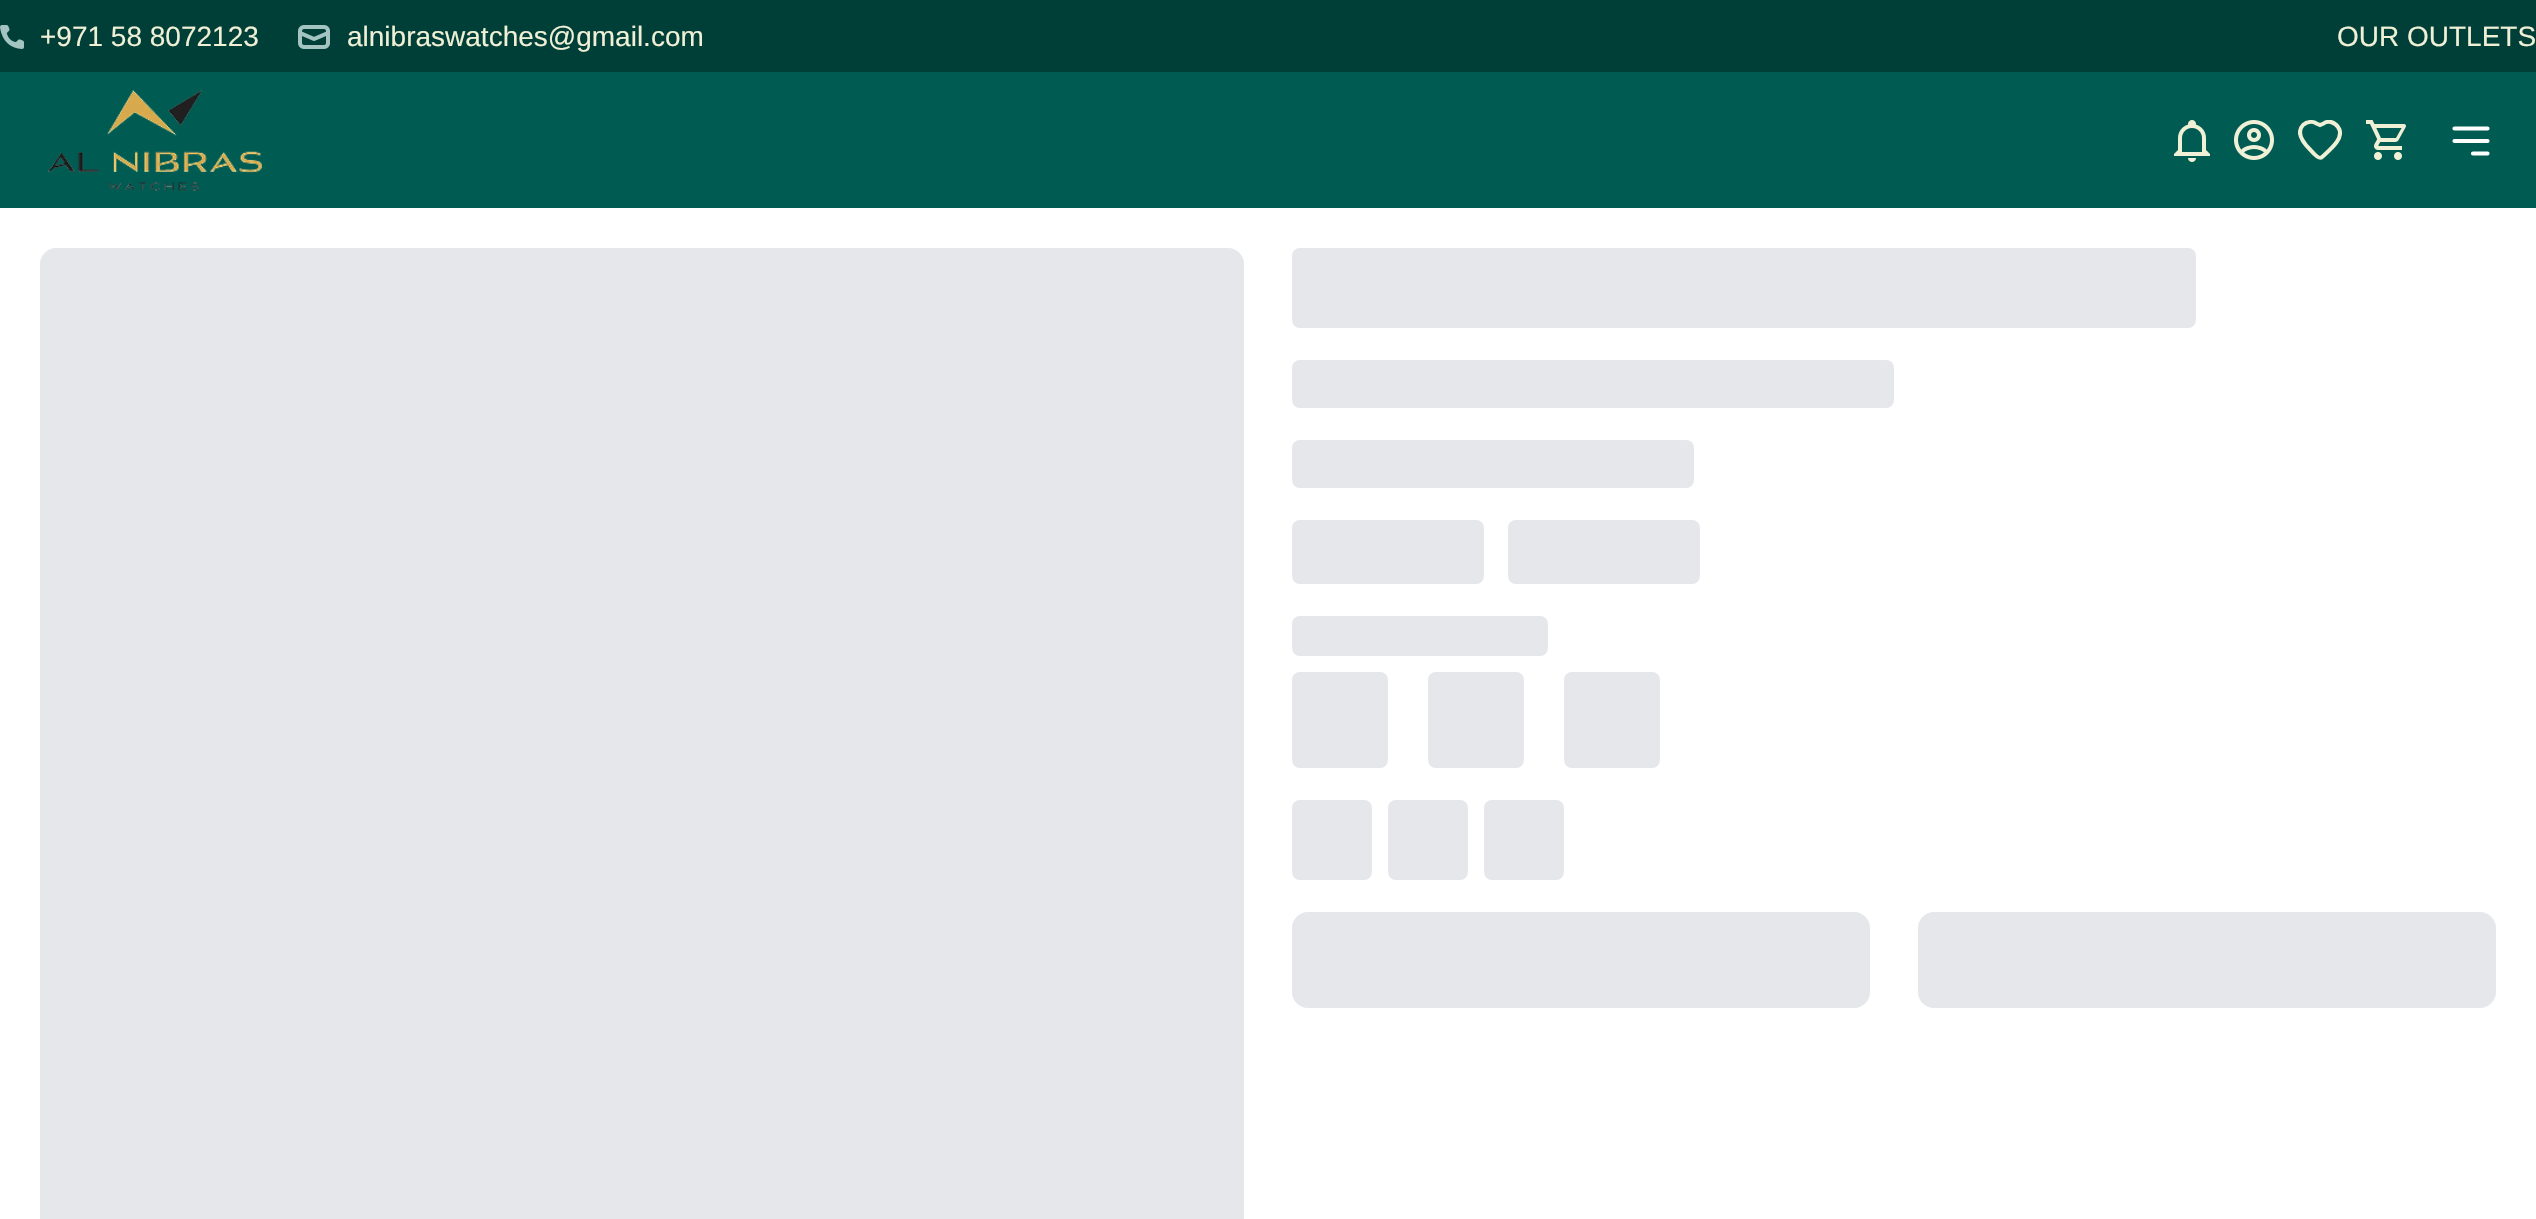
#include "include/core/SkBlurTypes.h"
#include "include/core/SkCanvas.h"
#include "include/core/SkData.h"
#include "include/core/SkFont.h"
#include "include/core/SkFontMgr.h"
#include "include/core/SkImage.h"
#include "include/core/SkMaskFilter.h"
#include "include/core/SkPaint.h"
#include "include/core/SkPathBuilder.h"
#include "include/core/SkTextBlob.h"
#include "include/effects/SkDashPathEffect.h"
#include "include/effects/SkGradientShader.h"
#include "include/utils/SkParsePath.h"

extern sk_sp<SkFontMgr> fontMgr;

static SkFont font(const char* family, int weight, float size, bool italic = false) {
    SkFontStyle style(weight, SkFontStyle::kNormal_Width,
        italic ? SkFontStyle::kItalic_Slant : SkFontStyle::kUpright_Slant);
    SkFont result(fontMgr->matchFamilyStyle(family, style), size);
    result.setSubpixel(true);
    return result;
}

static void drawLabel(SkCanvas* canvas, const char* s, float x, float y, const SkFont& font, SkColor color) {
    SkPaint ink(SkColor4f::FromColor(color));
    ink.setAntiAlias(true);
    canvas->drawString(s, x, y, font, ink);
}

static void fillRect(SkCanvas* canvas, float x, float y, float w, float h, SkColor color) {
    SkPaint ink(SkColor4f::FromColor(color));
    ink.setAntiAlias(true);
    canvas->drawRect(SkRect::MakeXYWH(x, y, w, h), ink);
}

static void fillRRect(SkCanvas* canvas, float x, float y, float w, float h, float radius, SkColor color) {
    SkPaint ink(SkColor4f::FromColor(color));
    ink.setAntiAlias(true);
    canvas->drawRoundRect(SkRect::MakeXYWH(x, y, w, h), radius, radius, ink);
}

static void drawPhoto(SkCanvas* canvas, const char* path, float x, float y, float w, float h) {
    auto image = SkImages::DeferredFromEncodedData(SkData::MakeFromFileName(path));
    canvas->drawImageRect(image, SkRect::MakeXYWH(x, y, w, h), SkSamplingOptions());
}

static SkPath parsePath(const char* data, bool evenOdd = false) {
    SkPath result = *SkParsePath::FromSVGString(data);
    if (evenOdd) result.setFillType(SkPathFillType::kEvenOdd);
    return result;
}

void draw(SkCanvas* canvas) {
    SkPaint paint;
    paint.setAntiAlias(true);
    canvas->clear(0xFFFFFFFF);
    fillRect(canvas, 0, 0, 2536, 72, 0xFF003F38);
    drawPhoto(canvas, "assets/img1.png", 0, 25, 24, 24);
    SkFont font1 = font("Liberation Sans", 400, 28);
    drawLabel(canvas, "+971 58 8072123", 40, 46, font1, 0xFFF0F0D6);
    drawPhoto(canvas, "assets/img2.png", 298, 25, 32, 24);
    drawLabel(canvas, "alnibraswatches@gmail.com", 347, 46, font1, 0xFFF0F0D6);
    drawLabel(canvas, "OUR OUTLETS", 2337, 46, font1, 0xFFF0F0D6);
    fillRect(canvas, 0, 72, 2536, 136, 0xFF005C53);
    drawPhoto(canvas, "assets/img3.png", 48, 89, 214, 102);
    drawPhoto(canvas, "assets/img4.png", 2174, 120, 36, 42);
    drawPhoto(canvas, "assets/img5.png", 2234, 120, 40, 40);
    canvas->save();
    canvas->clipRect(SkRect::MakeXYWH(2298, 120, 44, 40));
    paint.setStroke(true);
    paint.setStrokeWidth(4);
    paint.setColor(0xFFF0F0D6);
    canvas->drawPath(parsePath("M2321.5 157.5C2318.5 160 2311.5 151 2310 149.5C2304 143.5 2295 133.5 2303 125C2307 121.5 2312.5 121 2316.5 123.5L2320 125L2323.5 123.5C2325.5 122 2328.5 121.5 2331 122C2334 123 2336.5 124.5 2338 127C2346 138 2328.5 151 2321.5 157.5Z"), paint);
    canvas->restore();
    drawPhoto(canvas, "assets/img6.png", 2366, 120, 40, 40);
    paint.setStrokeWidth(4.2f);
    paint.setStrokeCap(SkPaint::kRound_Cap);
    paint.setStrokeJoin(SkPaint::kRound_Join);
    paint.setColor(0xFFFFFFFF);
    canvas->drawPath(parsePath("M2454.5 128.5H2487.5M2454.5 141H2487.5M2473 153.5H2487.5"), paint);
    fillRRect(canvas, 40, 248, 1204, 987, 16, 0xFFE5E7EB);
    fillRRect(canvas, 1292, 248, 904, 80, 8, 0xFFE5E7EB);
    fillRRect(canvas, 1292, 360, 602, 48, 8, 0xFFE5E7EB);
    fillRRect(canvas, 1292, 440, 402, 48, 8, 0xFFE5E7EB);
    fillRRect(canvas, 1292, 520, 192, 64, 8, 0xFFE5E7EB);
    fillRRect(canvas, 1508, 520, 192, 64, 8, 0xFFE5E7EB);
    fillRRect(canvas, 1292, 616, 256, 40, 8, 0xFFE5E7EB);
    fillRRect(canvas, 1292, 672, 96, 96, 8, 0xFFE5E7EB);
    fillRRect(canvas, 1428, 672, 96, 96, 8, 0xFFE5E7EB);
    fillRRect(canvas, 1564, 672, 96, 96, 8, 0xFFE5E7EB);
    fillRRect(canvas, 1292, 800, 80, 80, 8, 0xFFE5E7EB);
    fillRRect(canvas, 1388, 800, 80, 80, 8, 0xFFE5E7EB);
    fillRRect(canvas, 1484, 800, 80, 80, 8, 0xFFE5E7EB);
    fillRRect(canvas, 1292, 912, 578, 96, 16, 0xFFE5E7EB);
    fillRRect(canvas, 1918, 912, 578, 96, 16, 0xFFE5E7EB);
}
